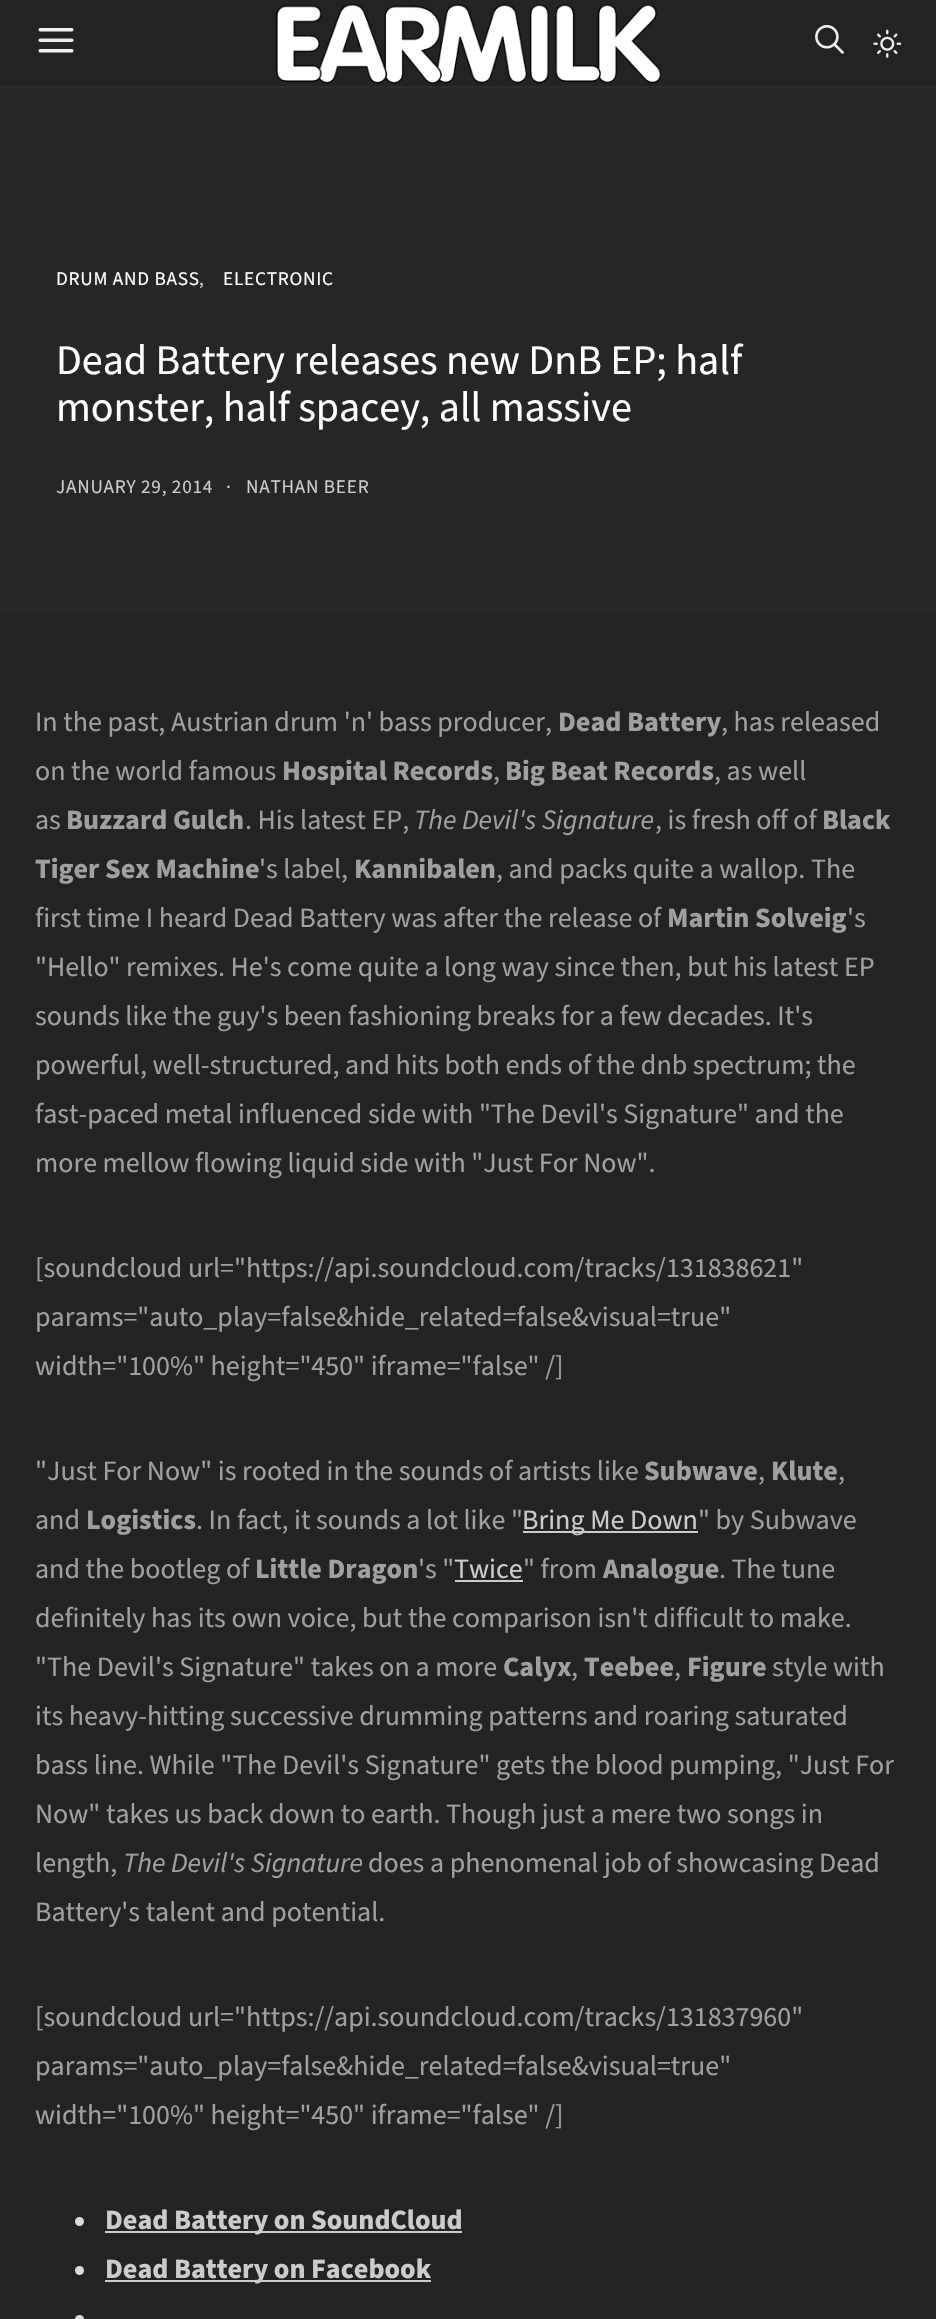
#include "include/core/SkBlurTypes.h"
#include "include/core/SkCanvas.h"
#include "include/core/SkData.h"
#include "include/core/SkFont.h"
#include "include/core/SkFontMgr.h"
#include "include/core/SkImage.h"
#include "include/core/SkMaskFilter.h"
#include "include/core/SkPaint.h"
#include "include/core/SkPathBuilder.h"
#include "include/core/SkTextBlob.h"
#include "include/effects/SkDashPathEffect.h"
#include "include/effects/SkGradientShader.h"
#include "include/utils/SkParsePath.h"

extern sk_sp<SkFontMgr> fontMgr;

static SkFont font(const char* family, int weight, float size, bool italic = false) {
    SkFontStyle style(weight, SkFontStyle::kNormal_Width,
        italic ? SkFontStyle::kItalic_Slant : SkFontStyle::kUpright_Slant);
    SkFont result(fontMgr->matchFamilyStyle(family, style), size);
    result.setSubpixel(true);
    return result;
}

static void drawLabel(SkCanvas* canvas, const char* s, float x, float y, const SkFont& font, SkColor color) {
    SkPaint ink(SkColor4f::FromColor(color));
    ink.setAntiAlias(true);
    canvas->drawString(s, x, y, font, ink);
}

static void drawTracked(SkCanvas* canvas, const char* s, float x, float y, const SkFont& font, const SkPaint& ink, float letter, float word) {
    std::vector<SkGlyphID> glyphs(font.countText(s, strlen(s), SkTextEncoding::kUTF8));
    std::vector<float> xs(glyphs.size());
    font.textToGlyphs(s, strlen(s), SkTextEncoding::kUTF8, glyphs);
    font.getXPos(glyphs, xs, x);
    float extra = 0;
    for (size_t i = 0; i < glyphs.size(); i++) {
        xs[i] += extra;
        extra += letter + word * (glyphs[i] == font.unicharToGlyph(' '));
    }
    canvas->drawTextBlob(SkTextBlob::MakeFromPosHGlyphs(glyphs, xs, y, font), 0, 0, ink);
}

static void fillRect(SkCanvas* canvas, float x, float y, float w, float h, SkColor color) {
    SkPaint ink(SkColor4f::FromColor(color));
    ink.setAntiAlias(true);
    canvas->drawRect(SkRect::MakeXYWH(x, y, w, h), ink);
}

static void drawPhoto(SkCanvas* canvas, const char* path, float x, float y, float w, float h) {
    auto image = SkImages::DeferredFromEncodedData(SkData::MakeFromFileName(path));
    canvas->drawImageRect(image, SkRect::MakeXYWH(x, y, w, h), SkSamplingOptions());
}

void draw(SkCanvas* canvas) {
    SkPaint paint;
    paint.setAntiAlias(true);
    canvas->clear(0xFF232323);
    fillRect(canvas, 0, 86, 936, 2, 0xFF2B2B2B);
    drawPhoto(canvas, "assets/img1.png", 38, 28, 36, 25);
    drawPhoto(canvas, "assets/img2.png", 276, 4, 385, 80);
    drawPhoto(canvas, "assets/img3.png", 815, 24, 29, 30);
    drawPhoto(canvas, "assets/img4.png", 873, 29, 29, 29);
    fillRect(canvas, 0, 88, 936, 526, 0xFF252626);
    SkFont font1 = font("Source Sans Pro", 400, 19.25f);
    paint.setColor(0xFFFFFFFF);
    drawTracked(canvas, "DRUM AND BASS", 56, 285, font1, paint, 0.75f, 0);
    paint.setColor(0xFFCCCCCC);
    drawTracked(canvas, ",", 199, 285, font1, paint, 0.75f, 0);
    paint.setColor(0xFFFFFFFF);
    drawTracked(canvas, "ELECTRONIC", 223, 285, font1, paint, 0.75f, 0);
    SkFont font2 = font("Source Sans Pro", 400, 42);
    drawLabel(canvas, "Dead Battery releases new DnB EP; half", 56, 374, font2, 0xFFFFFFFF);
    drawLabel(canvas, "monster, half spacey, all massive", 56, 421, font2, 0xFFFFFFFF);
    paint.setColor(0xFFCCCCCC);
    drawTracked(canvas, "JANUARY 29, 2014", 56, 493, font1, paint, 0.75f, 0);
    drawTracked(canvas, "·", 226, 493, font1, paint, 0.75f, 0);
    drawTracked(canvas, "NATHAN BEER", 246, 493, font1, paint, 0.75f, 0);
    SkFont font3 = font("Source Sans Pro", 400, 28);
    drawLabel(canvas, "In the past, Austrian drum 'n' bass producer,", 35, 731, font3, 0xFFA0A0A0);
    SkFont font4 = font("Source Sans Pro", 700, 28);
    drawLabel(canvas, "Dead Battery", 558, 731, font4, 0xFFA0A0A0);
    drawLabel(canvas, ", has released", 721, 731, font3, 0xFFA0A0A0);
    drawLabel(canvas, "on the world famous", 35, 780, font3, 0xFFA0A0A0);
    drawLabel(canvas, "Hospital Records", 282, 780, font4, 0xFFA0A0A0);
    drawLabel(canvas, ",", 493, 780, font3, 0xFFA0A0A0);
    drawLabel(canvas, "Big Beat Records", 505, 780, font4, 0xFFA0A0A0);
    drawLabel(canvas, ", as well", 714, 780, font3, 0xFFA0A0A0);
    drawLabel(canvas, "as", 35, 829, font3, 0xFFA0A0A0);
    drawLabel(canvas, "Buzzard Gulch", 66, 829, font4, 0xFFA0A0A0);
    drawLabel(canvas, ". His latest EP,", 245, 829, font3, 0xFFA0A0A0);
    SkFont font5 = font("Source Sans Pro", 400, 28, true);
    drawLabel(canvas, "The Devil's Signature", 414, 829, font5, 0xFFA0A0A0);
    drawLabel(canvas, ", is fresh off of", 655, 829, font3, 0xFFA0A0A0);
    drawLabel(canvas, "Black", 822, 829, font4, 0xFFA0A0A0);
    drawLabel(canvas, "Tiger Sex Machine", 35, 878, font4, 0xFFA0A0A0);
    drawLabel(canvas, "'s label,", 259, 878, font3, 0xFFA0A0A0);
    drawLabel(canvas, "Kannibalen", 354, 878, font4, 0xFFA0A0A0);
    drawLabel(canvas, ", and packs quite a wallop. The", 496, 878, font3, 0xFFA0A0A0);
    drawLabel(canvas, "first time I heard Dead Battery was after the release of", 35, 927, font3, 0xFFA0A0A0);
    drawLabel(canvas, "Martin Solveig", 667, 927, font4, 0xFFA0A0A0);
    drawLabel(canvas, "'s", 847, 927, font3, 0xFFA0A0A0);
    drawLabel(canvas, "\"Hello\" remixes. He's come quite a long way since then, but his latest EP", 35, 976, font3, 0xFFA0A0A0);
    drawLabel(canvas, "sounds like the guy's been fashioning breaks for a few decades. It's", 35, 1025, font3, 0xFFA0A0A0);
    drawLabel(canvas, "powerful, well-structured, and hits both ends of the dnb spectrum; the", 35, 1074, font3, 0xFFA0A0A0);
    drawLabel(canvas, "fast-paced metal influenced side with \"The Devil's Signature\" and the", 35, 1123, font3, 0xFFA0A0A0);
    drawLabel(canvas, "more mellow flowing liquid side with \"Just For Now\".", 35, 1172, font3, 0xFFA0A0A0);
    drawLabel(canvas, "[soundcloud url=\"https://api.soundcloud.com/tracks/131838621\"", 35, 1277, font3, 0xFFA0A0A0);
    drawLabel(canvas, "params=\"auto_play=false&hide_related=false&visual=true\"", 35, 1326, font3, 0xFFA0A0A0);
    drawLabel(canvas, "width=\"100%\" height=\"450\" iframe=\"false\" /]", 35, 1375, font3, 0xFFA0A0A0);
    drawLabel(canvas, "\"Just For Now\" is rooted in the sounds of artists like", 35, 1480, font3, 0xFFA0A0A0);
    drawLabel(canvas, "Subwave", 644, 1480, font4, 0xFFA0A0A0);
    drawLabel(canvas, ",", 758, 1480, font3, 0xFFA0A0A0);
    drawLabel(canvas, "Klute", 771, 1480, font4, 0xFFA0A0A0);
    drawLabel(canvas, ",", 838, 1480, font3, 0xFFA0A0A0);
    drawLabel(canvas, "and", 35, 1529, font3, 0xFFA0A0A0);
    drawLabel(canvas, "Logistics", 86, 1529, font4, 0xFFA0A0A0);
    drawLabel(canvas, ". In fact, it sounds a lot like \"", 196, 1529, font3, 0xFFA0A0A0);
    fillRect(canvas, 523, 1531, 175, 2, 0xFFCCCCCC);
    drawLabel(canvas, "Bring Me Down", 522, 1529, font3, 0xFFCCCCCC);
    drawLabel(canvas, "\" by Subwave", 698, 1529, font3, 0xFFA0A0A0);
    drawLabel(canvas, "and the bootleg of", 35, 1578, font3, 0xFFA0A0A0);
    drawLabel(canvas, "Little Dragon", 255, 1578, font4, 0xFFA0A0A0);
    drawLabel(canvas, "'s \"", 418, 1578, font3, 0xFFA0A0A0);
    drawLabel(canvas, "Twice", 454, 1578, font3, 0xFFCCCCCC);
    fillRect(canvas, 455, 1580, 68, 2, 0xFFCCCCCC);
    drawLabel(canvas, "\" from", 523, 1578, font3, 0xFFA0A0A0);
    drawLabel(canvas, "Analogue", 603, 1578, font4, 0xFFA0A0A0);
    drawLabel(canvas, ". The tune", 719, 1578, font3, 0xFFA0A0A0);
    drawLabel(canvas, "definitely has its own voice, but the comparison isn't difficult to make.", 35, 1627, font3, 0xFFA0A0A0);
    drawLabel(canvas, "\"The Devil's Signature\" takes on a more", 35, 1676, font3, 0xFFA0A0A0);
    drawLabel(canvas, "Calyx", 503, 1676, font4, 0xFFA0A0A0);
    drawLabel(canvas, ",", 571, 1676, font3, 0xFFA0A0A0);
    drawLabel(canvas, "Teebee", 584, 1676, font4, 0xFFA0A0A0);
    drawLabel(canvas, ",", 674, 1676, font3, 0xFFA0A0A0);
    drawLabel(canvas, "Figure", 687, 1676, font4, 0xFFA0A0A0);
    drawLabel(canvas, "style with", 772, 1676, font3, 0xFFA0A0A0);
    drawLabel(canvas, "its heavy-hitting successive drumming patterns and roaring saturated", 35, 1725, font3, 0xFFA0A0A0);
    drawLabel(canvas, "bass line. While \"The Devil's Signature\" gets the blood pumping, \"Just For", 35, 1774, font3, 0xFFA0A0A0);
    drawLabel(canvas, "Now\" takes us back down to earth. Though just a mere two songs in", 35, 1823, font3, 0xFFA0A0A0);
    drawLabel(canvas, "length,", 35, 1872, font3, 0xFFA0A0A0);
    drawLabel(canvas, "The Devil's Signature", 123, 1872, font5, 0xFFA0A0A0);
    drawLabel(canvas, "does a phenomenal job of showcasing Dead", 368, 1872, font3, 0xFFA0A0A0);
    drawLabel(canvas, "Battery's talent and potential.", 35, 1921, font3, 0xFFA0A0A0);
    drawLabel(canvas, "[soundcloud url=\"https://api.soundcloud.com/tracks/131837960\"", 35, 2026, font3, 0xFFA0A0A0);
    drawLabel(canvas, "params=\"auto_play=false&hide_related=false&visual=true\"", 35, 2075, font3, 0xFFA0A0A0);
    drawLabel(canvas, "width=\"100%\" height=\"450\" iframe=\"false\" /]", 35, 2124, font3, 0xFFA0A0A0);
    paint.setColor(0xFFDBDBDB);
    canvas->drawCircle(79.5f, 2221.5f, 4.5f, paint);
    fillRect(canvas, 105, 2231, 357, 2, 0xFFCCCCCC);
    drawLabel(canvas, "Dead Battery on SoundCloud", 105, 2229, font4, 0xFFCCCCCC);
    canvas->drawCircle(79.5f, 2270.5f, 4.5f, paint);
    fillRect(canvas, 105, 2280, 326, 2, 0xFFCCCCCC);
    drawLabel(canvas, "Dead Battery on Facebook", 105, 2278, font4, 0xFFCCCCCC);
    canvas->drawCircle(79.5f, 2319.5f, 4.5f, paint);
}
